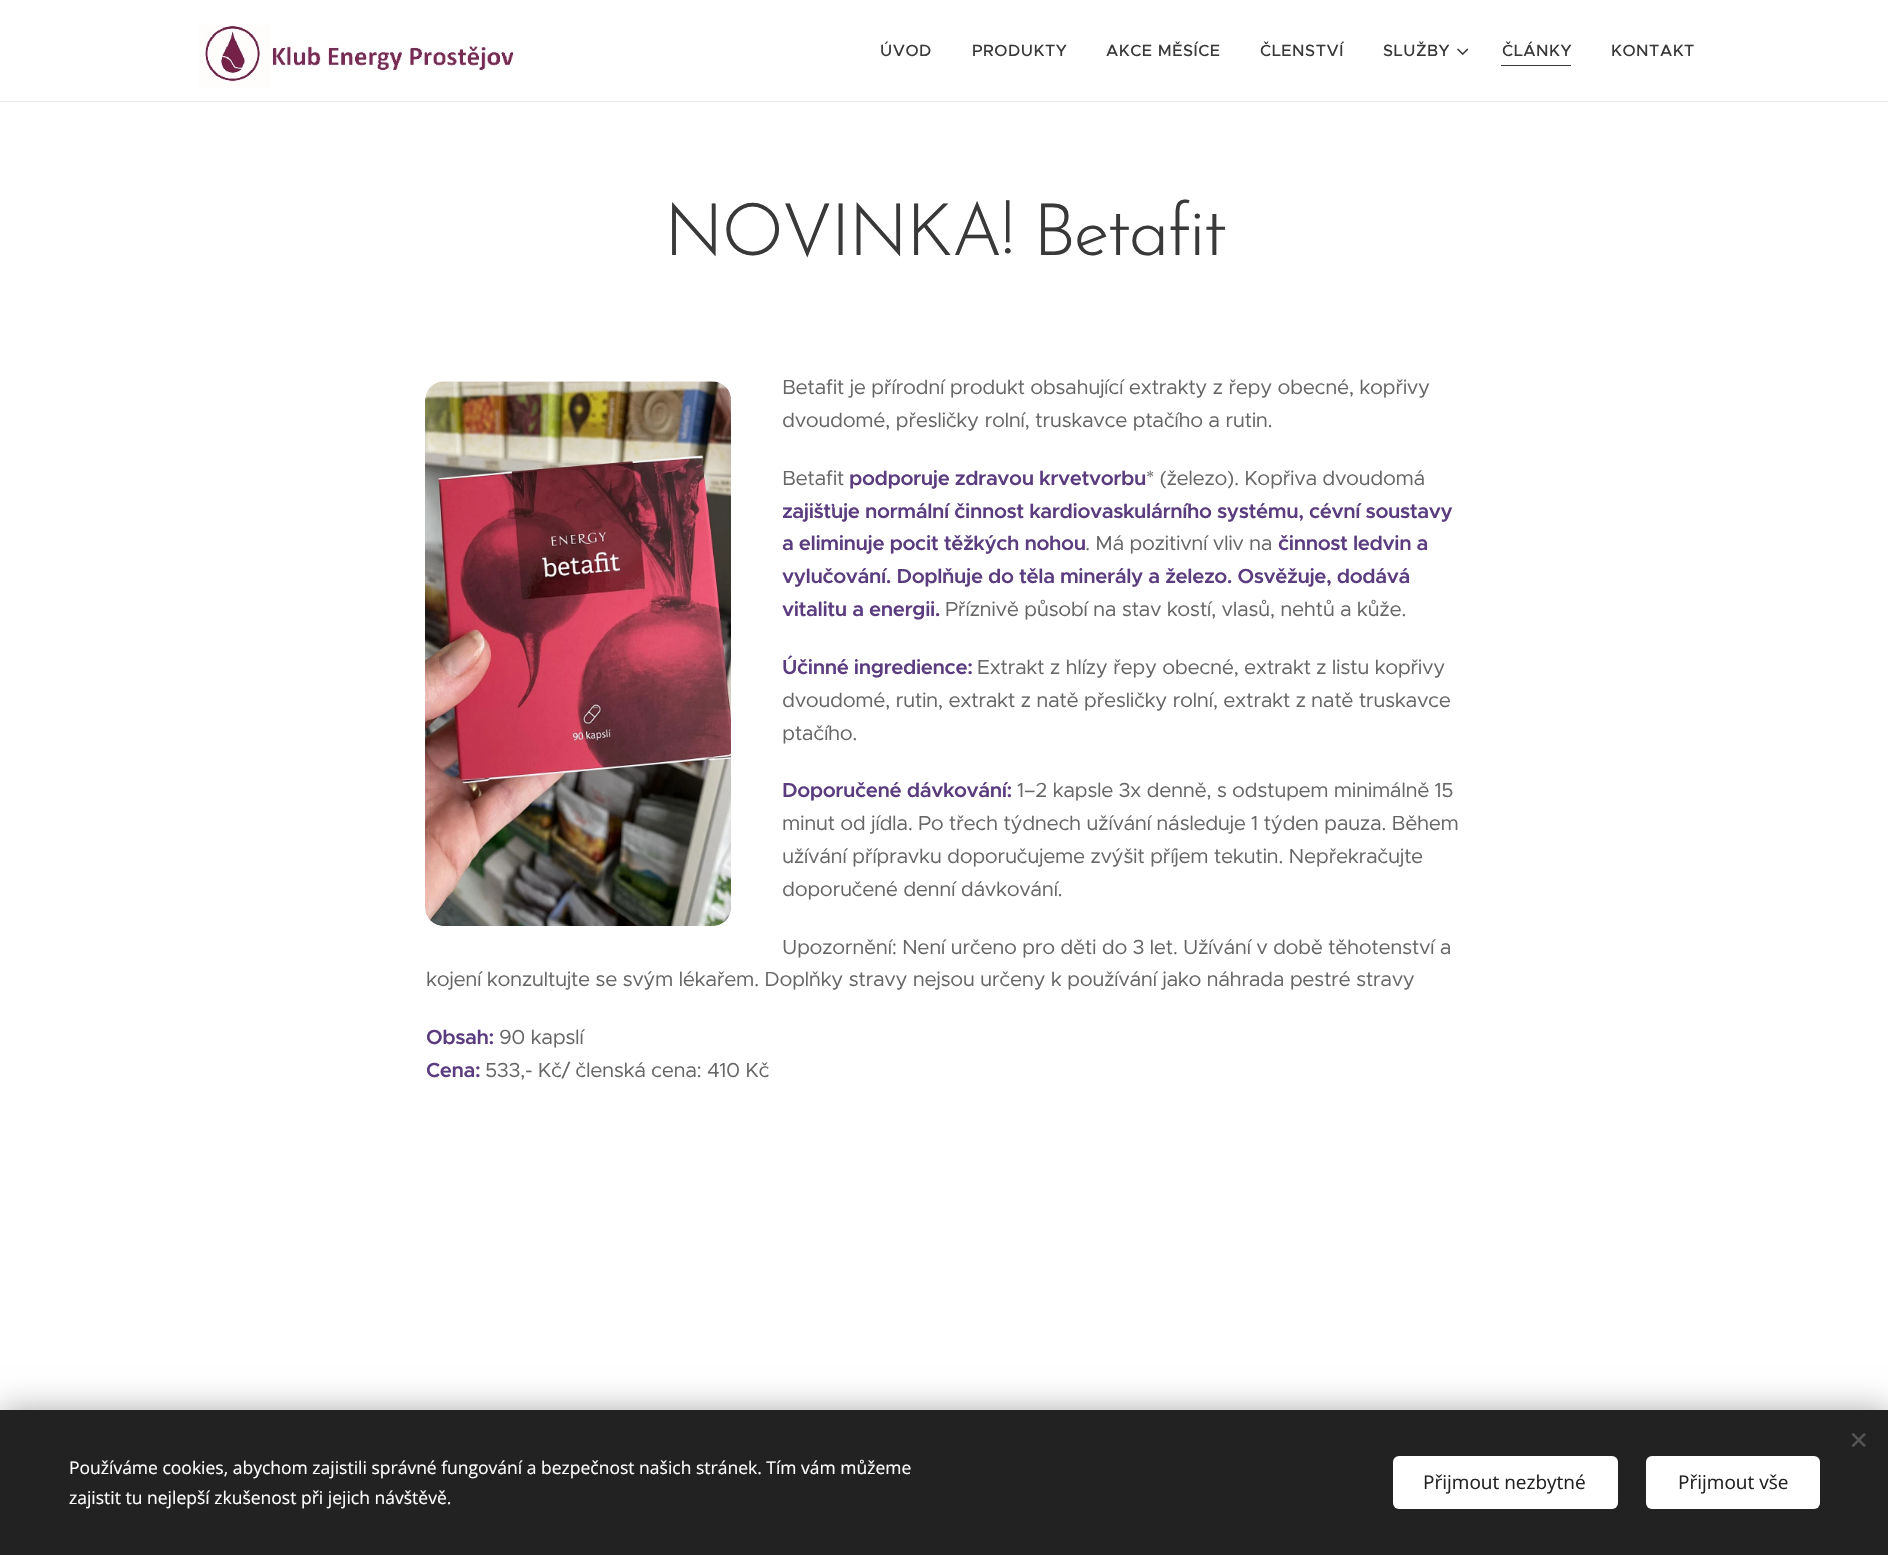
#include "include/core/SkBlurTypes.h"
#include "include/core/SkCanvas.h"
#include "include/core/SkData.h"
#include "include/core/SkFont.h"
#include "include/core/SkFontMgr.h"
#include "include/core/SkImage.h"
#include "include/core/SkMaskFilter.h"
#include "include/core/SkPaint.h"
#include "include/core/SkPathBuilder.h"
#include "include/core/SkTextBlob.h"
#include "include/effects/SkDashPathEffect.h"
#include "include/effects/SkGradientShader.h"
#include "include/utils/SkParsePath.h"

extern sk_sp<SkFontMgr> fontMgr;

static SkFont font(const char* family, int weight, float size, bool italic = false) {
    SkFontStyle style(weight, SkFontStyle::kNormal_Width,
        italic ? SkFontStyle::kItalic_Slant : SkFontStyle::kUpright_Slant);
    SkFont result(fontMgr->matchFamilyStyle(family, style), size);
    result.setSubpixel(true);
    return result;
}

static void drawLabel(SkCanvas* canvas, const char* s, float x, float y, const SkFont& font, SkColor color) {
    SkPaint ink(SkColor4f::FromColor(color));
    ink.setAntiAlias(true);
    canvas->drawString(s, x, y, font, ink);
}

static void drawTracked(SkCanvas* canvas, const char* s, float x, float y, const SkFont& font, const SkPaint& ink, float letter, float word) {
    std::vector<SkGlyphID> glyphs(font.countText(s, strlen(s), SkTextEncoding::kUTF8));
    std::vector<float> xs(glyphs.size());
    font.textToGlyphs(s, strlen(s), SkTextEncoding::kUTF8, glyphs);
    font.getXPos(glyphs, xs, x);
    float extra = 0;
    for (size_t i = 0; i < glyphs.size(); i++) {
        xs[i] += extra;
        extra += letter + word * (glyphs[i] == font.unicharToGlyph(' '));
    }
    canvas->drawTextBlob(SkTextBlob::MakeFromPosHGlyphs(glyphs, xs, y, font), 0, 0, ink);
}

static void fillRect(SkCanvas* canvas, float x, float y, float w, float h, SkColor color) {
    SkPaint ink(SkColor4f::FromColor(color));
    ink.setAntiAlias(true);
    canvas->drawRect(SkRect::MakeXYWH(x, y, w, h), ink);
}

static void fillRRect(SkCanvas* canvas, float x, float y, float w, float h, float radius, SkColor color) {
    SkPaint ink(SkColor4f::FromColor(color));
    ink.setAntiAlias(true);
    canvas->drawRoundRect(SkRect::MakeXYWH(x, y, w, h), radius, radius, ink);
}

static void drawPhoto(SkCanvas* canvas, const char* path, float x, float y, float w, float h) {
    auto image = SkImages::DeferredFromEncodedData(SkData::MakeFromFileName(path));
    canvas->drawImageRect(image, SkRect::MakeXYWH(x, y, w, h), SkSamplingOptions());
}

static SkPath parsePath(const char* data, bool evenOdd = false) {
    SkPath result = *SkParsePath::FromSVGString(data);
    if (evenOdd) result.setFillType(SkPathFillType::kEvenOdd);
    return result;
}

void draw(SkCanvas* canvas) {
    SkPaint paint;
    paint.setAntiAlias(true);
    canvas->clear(0xFFFFFFFF);
    drawPhoto(canvas, "assets/img1.png", 199, 25, 315, 63);
    SkFont font1 = font("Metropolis", 500, 16.25f);
    paint.setColor(0xFF393939);
    drawTracked(canvas, "ÚVOD", 880, 56, font1, paint, 0.5f, 0);
    drawTracked(canvas, "PRODUKTY", 972, 56, font1, paint, 0.5f, 0);
    drawTracked(canvas, "AKCE MĚSÍCE", 1106, 56, font1, paint, 0.5f, 0);
    drawTracked(canvas, "ČLENSTVÍ", 1260, 56, font1, paint, 0.5f, 0);
    drawTracked(canvas, "SLUŽBY", 1383, 56, font1, paint, 0.5f, 0);
    drawPhoto(canvas, "assets/img2.png", 1457, 48, 12, 7);
    drawTracked(canvas, "ČLÁNKY", 1502, 56, font1, paint, 0.5f, 0);
    fillRect(canvas, 1501, 65, 70, 1, 0xFF393939);
    drawTracked(canvas, "KONTAKT", 1611, 56, font1, paint, 0.5f, 0);
    fillRect(canvas, 0, 101, 1888, 1, 0xFFE8E8E8);
    SkFont font2 = font("Josefin Sans", 300, 72.5f);
    drawTracked(canvas, "NOVINKA! Betafit", 664, 255, font2, paint, -2.2f, 0);
    SkFont font3 = font("Metropolis", 400, 20.5f);
    paint.setColor(0xFF666666);
    drawTracked(canvas, "Betafit je přírodní produkt obsahující extrakty z řepy obecné, kopřivy", 782, 394, font3, paint, -0.41f, 0);
    drawTracked(canvas, "dvoudomé, přesličky rolní, truskavce ptačího a rutin.", 782, 427, font3, paint, -0.41f, 0);
    drawTracked(canvas, "Betafit", 782, 485, font3, paint, -0.41f, 0);
    SkFont font4 = font("Metropolis", 600, 20.5f);
    paint.setColor(0xFF5B3C7F);
    drawTracked(canvas, "podporuje zdravou krvetvorbu", 849, 485, font4, paint, -0.41f, 0);
    paint.setColor(0xFF666666);
    drawTracked(canvas, "* (železo). Kopřiva dvoudomá", 1146, 485, font3, paint, -0.41f, 0);
    paint.setColor(0xFF5B3C7F);
    drawTracked(canvas, "zajišťuje normální činnost kardiovaskulárního systému, cévní soustavy", 782, 518, font4, paint, -0.41f, 0);
    drawTracked(canvas, "a eliminuje pocit těžkých nohou", 782, 550, font4, paint, -0.41f, 0);
    paint.setColor(0xFF666666);
    drawTracked(canvas, ". Má pozitivní vliv na", 1085, 550, font3, paint, -0.41f, 0);
    paint.setColor(0xFF5B3C7F);
    drawTracked(canvas, "činnost ledvin a", 1278, 550, font4, paint, -0.41f, 0);
    drawTracked(canvas, "vylučování. Doplňuje do těla minerály a železo. Osvěžuje, dodává", 782, 583, font4, paint, -0.41f, 0);
    drawTracked(canvas, "vitalitu a energii.", 782, 616, font4, paint, -0.41f, 0);
    paint.setColor(0xFF666666);
    drawTracked(canvas, "Příznivě působí na stav kostí, vlasů, nehtů a kůže.", 945, 616, font3, paint, -0.41f, 0);
    paint.setColor(0xFF5B3C7F);
    drawTracked(canvas, "Účinné ingredience:", 782, 674, font4, paint, -0.41f, 0);
    paint.setColor(0xFF666666);
    drawTracked(canvas, "Extrakt z hlízy řepy obecné, extrakt z listu kopřivy", 977, 674, font3, paint, -0.41f, 0);
    drawTracked(canvas, "dvoudomé, rutin, extrakt z natě přesličky rolní, extrakt z natě truskavce", 782, 707, font3, paint, -0.41f, 0);
    drawTracked(canvas, "ptačího.", 782, 740, font3, paint, -0.41f, 0);
    paint.setColor(0xFF5B3C7F);
    drawTracked(canvas, "Doporučené dávkování:", 782, 797, font4, paint, -0.41f, 0);
    paint.setColor(0xFF666666);
    drawTracked(canvas, "1–2 kapsle 3x denně, s odstupem minimálně 15", 1017, 797, font3, paint, -0.41f, 0);
    drawTracked(canvas, "minut od jídla. Po třech týdnech užívání následuje 1 týden pauza. Během", 782, 830, font3, paint, -0.41f, 0);
    drawTracked(canvas, "užívání přípravku doporučujeme zvýšit příjem tekutin. Nepřekračujte", 782, 863, font3, paint, -0.41f, 0);
    drawTracked(canvas, "doporučené denní dávkování.", 782, 896, font3, paint, -0.41f, 0);
    drawTracked(canvas, "Upozornění: Není určeno pro děti do 3 let. Užívání v době těhotenství a", 782, 954, font3, paint, -0.41f, 0);
    drawTracked(canvas, "kojení konzultujte se svým lékařem. Doplňky stravy nejsou určeny k používání jako náhrada pestré stravy", 426, 986, font3, paint, -0.41f, 0);
    paint.setColor(0xFF5B3C7F);
    drawTracked(canvas, "Obsah:", 426, 1044, font4, paint, -0.41f, 0);
    paint.setColor(0xFF666666);
    drawTracked(canvas, "90 kapslí", 499, 1044, font3, paint, -0.41f, 0);
    paint.setColor(0xFF5B3C7F);
    drawTracked(canvas, "Cena:", 426, 1077, font4, paint, -0.41f, 0);
    paint.setColor(0xFF666666);
    drawTracked(canvas, "533,- Kč/ členská cena: 410 Kč", 485, 1077, font3, paint, -0.41f, 0);
    drawPhoto(canvas, "assets/img3.png", 425, 381, 306, 545);
    paint.setColor(0x54000000);
    paint.setMaskFilter(SkMaskFilter::MakeBlur(kNormal_SkBlurStyle, 15.5f));
    canvas->drawRect(SkRect::MakeXYWH(0, 1410, 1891, 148), paint);
    paint.setMaskFilter(nullptr);
    fillRect(canvas, 0, 1410, 1888, 145, 0xFF222222);
    paint.setColor(0xFF555555);
    canvas->drawPath(parsePath("M1851.5 1445.5L1864 1433L1866 1434.5L1853.5 1447Z"), paint);
    canvas->drawPath(parsePath("M1853.5 1433L1866 1445.5L1864 1447L1851.5 1434.5Z"), paint);
    SkFont font5 = font("Open Sans", 400, 17.5f);
    drawLabel(canvas, "Používáme cookies, abychom zajistili správné fungování a bezpečnost našich stránek. Tím vám můžeme", 69, 1474, font5, 0xFFFFFFFF);
    drawLabel(canvas, "zajistit tu nejlepší zkušenost při jejich návštěvě.", 69, 1504, font5, 0xFFFFFFFF);
    fillRRect(canvas, 1393, 1456, 225, 53, 6, 0xFFFFFFFF);
    SkFont font6 = font("Open Sans", 400, 19);
    drawLabel(canvas, "Přijmout nezbytné", 1423, 1489, font6, 0xFF222222);
    fillRRect(canvas, 1646, 1456, 174, 53, 6, 0xFFFFFFFF);
    drawLabel(canvas, "Přijmout vše", 1678, 1489, font6, 0xFF222222);
}
